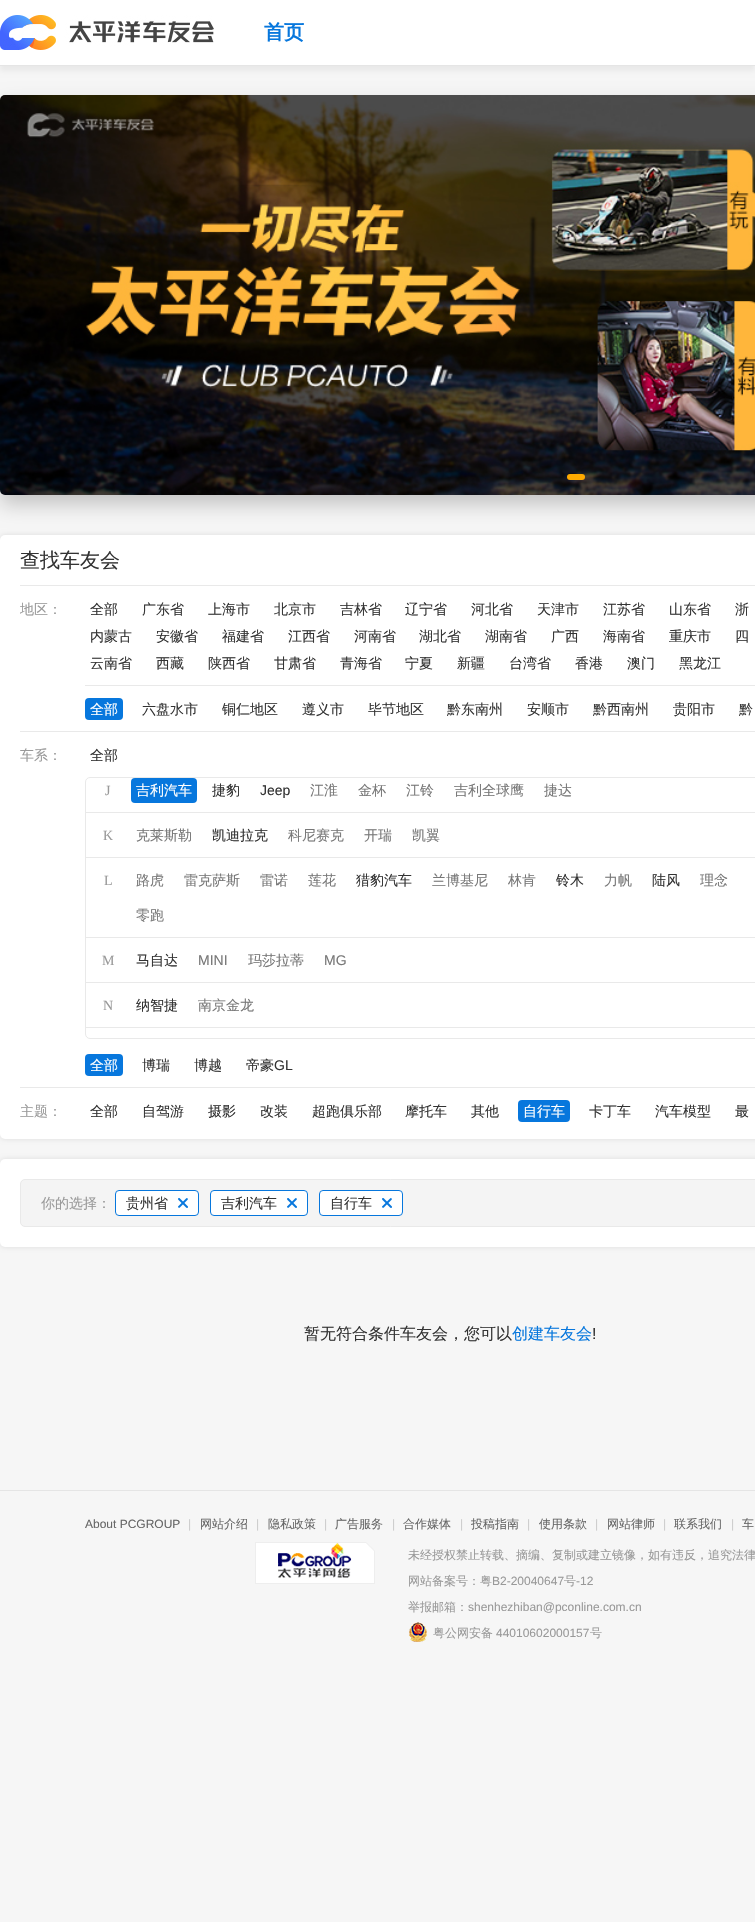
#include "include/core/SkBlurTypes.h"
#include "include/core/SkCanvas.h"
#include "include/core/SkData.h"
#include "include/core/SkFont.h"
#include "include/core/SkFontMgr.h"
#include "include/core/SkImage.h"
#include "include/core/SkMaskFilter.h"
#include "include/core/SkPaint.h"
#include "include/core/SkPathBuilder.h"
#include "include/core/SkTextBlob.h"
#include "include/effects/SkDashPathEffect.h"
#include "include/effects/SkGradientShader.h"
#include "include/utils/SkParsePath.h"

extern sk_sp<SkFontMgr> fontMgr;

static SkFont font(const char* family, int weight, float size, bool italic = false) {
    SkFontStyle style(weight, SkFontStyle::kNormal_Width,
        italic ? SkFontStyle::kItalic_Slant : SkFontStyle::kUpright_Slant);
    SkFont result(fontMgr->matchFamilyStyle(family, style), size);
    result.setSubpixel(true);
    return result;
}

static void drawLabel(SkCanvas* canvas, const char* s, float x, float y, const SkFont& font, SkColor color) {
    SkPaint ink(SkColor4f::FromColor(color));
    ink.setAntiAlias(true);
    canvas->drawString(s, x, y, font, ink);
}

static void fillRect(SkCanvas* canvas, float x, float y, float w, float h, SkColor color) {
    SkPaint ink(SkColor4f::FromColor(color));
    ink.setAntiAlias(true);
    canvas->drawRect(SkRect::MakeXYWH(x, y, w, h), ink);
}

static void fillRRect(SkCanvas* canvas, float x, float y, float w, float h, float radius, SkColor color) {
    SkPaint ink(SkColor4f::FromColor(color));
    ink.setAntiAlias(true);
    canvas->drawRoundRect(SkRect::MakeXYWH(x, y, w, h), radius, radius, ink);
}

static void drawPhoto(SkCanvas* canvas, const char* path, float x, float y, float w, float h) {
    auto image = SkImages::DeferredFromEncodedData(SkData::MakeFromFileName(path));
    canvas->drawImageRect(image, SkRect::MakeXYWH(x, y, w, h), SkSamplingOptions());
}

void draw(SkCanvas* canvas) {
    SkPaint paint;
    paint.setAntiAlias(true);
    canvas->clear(0xFFF6F6F6);
    paint.setColor(0x0D000000);
    paint.setMaskFilter(SkMaskFilter::MakeBlur(kNormal_SkBlurStyle, 2.5f));
    canvas->drawRect(SkRect::MakeXYWH(0, 5, 755, 66), paint);
    paint.setMaskFilter(nullptr);
    fillRect(canvas, 0, 0, 755, 65, 0xFFFFFFFF);
    fillRect(canvas, 0, 65, 755, 1, 0xFFE5E5E5);
    drawPhoto(canvas, "assets/img1.png", 0, 15, 214, 35);
    SkFont font1 = font("WenQuanYi Zen Hei", 700, 20);
    drawLabel(canvas, "首页", 264, 39, font1, 0xFF0777DD);
    paint.setColor(0x1A000000);
    paint.setMaskFilter(SkMaskFilter::MakeBlur(kNormal_SkBlurStyle, 2.5f));
    canvas->drawRoundRect(SkRect::MakeXYWH(0, 535, 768, 604), 5, 5, paint);
    paint.setMaskFilter(nullptr);
    fillRRect(canvas, 0, 535, 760, 604, 5, 0xFFFFFFFF);
    paint.setColor(0x33000000);
    paint.setMaskFilter(SkMaskFilter::MakeBlur(kNormal_SkBlurStyle, 10));
    canvas->drawRoundRect(SkRect::MakeXYWH(0, 105, 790, 400), 5, 5, paint);
    paint.setMaskFilter(nullptr);
    drawPhoto(canvas, "assets/img2.png", 0, 95, 755, 400);
    fillRRect(canvas, 567, 474, 18, 6, 3, 0xFFFFAA00);
    SkFont font2 = font("WenQuanYi Zen Hei", 500, 20);
    drawLabel(canvas, "查找车友会", 20, 567, font2, 0xFF333333);
    fillRect(canvas, 20, 585, 735, 1, 0xFFE9E9E9);
    SkFont font3 = font("WenQuanYi Zen Hei", 500, 14);
    drawLabel(canvas, "地区：", 20, 614, font3, 0xFF999999);
    drawLabel(canvas, "全部", 90, 614, font3, 0xFF333333);
    drawLabel(canvas, "广东省", 142, 614, font3, 0xFF333333);
    drawLabel(canvas, "上海市", 208, 614, font3, 0xFF333333);
    drawLabel(canvas, "北京市", 274, 614, font3, 0xFF333333);
    drawLabel(canvas, "吉林省", 340, 614, font3, 0xFF333333);
    drawLabel(canvas, "辽宁省", 405, 614, font3, 0xFF333333);
    drawLabel(canvas, "河北省", 471, 614, font3, 0xFF333333);
    drawLabel(canvas, "天津市", 537, 614, font3, 0xFF333333);
    drawLabel(canvas, "江苏省", 603, 614, font3, 0xFF333333);
    drawLabel(canvas, "山东省", 669, 614, font3, 0xFF333333);
    drawLabel(canvas, "浙", 735, 614, font3, 0xFF333333);
    drawLabel(canvas, "内蒙古", 90, 641, font3, 0xFF333333);
    drawLabel(canvas, "安徽省", 156, 641, font3, 0xFF333333);
    drawLabel(canvas, "福建省", 222, 641, font3, 0xFF333333);
    drawLabel(canvas, "江西省", 288, 641, font3, 0xFF333333);
    drawLabel(canvas, "河南省", 354, 641, font3, 0xFF333333);
    drawLabel(canvas, "湖北省", 419, 641, font3, 0xFF333333);
    drawLabel(canvas, "湖南省", 485, 641, font3, 0xFF333333);
    drawLabel(canvas, "广西", 551, 641, font3, 0xFF333333);
    drawLabel(canvas, "海南省", 603, 641, font3, 0xFF333333);
    drawLabel(canvas, "重庆市", 669, 641, font3, 0xFF333333);
    drawLabel(canvas, "四", 735, 641, font3, 0xFF333333);
    drawLabel(canvas, "云南省", 90, 668, font3, 0xFF333333);
    drawLabel(canvas, "西藏", 156, 668, font3, 0xFF333333);
    drawLabel(canvas, "陕西省", 208, 668, font3, 0xFF333333);
    drawLabel(canvas, "甘肃省", 274, 668, font3, 0xFF333333);
    drawLabel(canvas, "青海省", 340, 668, font3, 0xFF333333);
    drawLabel(canvas, "宁夏", 405, 668, font3, 0xFF333333);
    drawLabel(canvas, "新疆", 457, 668, font3, 0xFF333333);
    drawLabel(canvas, "台湾省", 509, 668, font3, 0xFF333333);
    drawLabel(canvas, "香港", 575, 668, font3, 0xFF333333);
    drawLabel(canvas, "澳门", 627, 668, font3, 0xFF333333);
    drawLabel(canvas, "黑龙江", 679, 668, font3, 0xFF333333);
    fillRect(canvas, 85, 685, 670, 1, 0xFFE9E9E9);
    fillRRect(canvas, 85, 698, 38, 22, 4, 0xFF0777DD);
    drawLabel(canvas, "全部", 90, 714, font3, 0xFFFFFFFF);
    drawLabel(canvas, "六盘水市", 142, 714, font3, 0xFF333333);
    drawLabel(canvas, "铜仁地区", 222, 714, font3, 0xFF333333);
    drawLabel(canvas, "遵义市", 302, 714, font3, 0xFF333333);
    drawLabel(canvas, "毕节地区", 368, 714, font3, 0xFF333333);
    drawLabel(canvas, "黔东南州", 447, 714, font3, 0xFF333333);
    drawLabel(canvas, "安顺市", 527, 714, font3, 0xFF333333);
    drawLabel(canvas, "黔西南州", 593, 714, font3, 0xFF333333);
    drawLabel(canvas, "贵阳市", 673, 714, font3, 0xFF333333);
    drawLabel(canvas, "黔", 739, 714, font3, 0xFF333333);
    fillRect(canvas, 20, 731, 735, 1, 0xFFE9E9E9);
    drawLabel(canvas, "车系：", 20, 760, font3, 0xFF999999);
    drawLabel(canvas, "全部", 90, 760, font3, 0xFF333333);
    paint.setStroke(true);
    paint.setStrokeWidth(1);
    paint.setColor(0xFFE9E9E9);
    canvas->drawRoundRect(SkRect::MakeXYWH(85.5f, 777.5f, 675, 261), 4.5f, 4.5f, paint);
    SkFont font4 = font("Liberation Serif", 400, 14);
    drawLabel(canvas, "J", 105, 795, font4, 0xFF999999);
    fillRRect(canvas, 131, 778, 66, 25, 4, 0xFF0777DD);
    drawLabel(canvas, "吉利汽车", 136, 795, font3, 0xFFFFFFFF);
    drawLabel(canvas, "捷豹", 212, 795, font3, 0xFF333333);
    SkFont font5 = font("Liberation Sans", 400, 14);
    drawLabel(canvas, "Jeep", 260, 795, font5, 0xFF333333);
    drawLabel(canvas, "江淮", 310, 795, font3, 0xFF777777);
    drawLabel(canvas, "金杯", 358, 795, font3, 0xFF777777);
    drawLabel(canvas, "江铃", 406, 795, font3, 0xFF777777);
    drawLabel(canvas, "吉利全球鹰", 454, 795, font3, 0xFF777777);
    drawLabel(canvas, "捷达", 544, 795, font3, 0xFF777777);
    fillRect(canvas, 86, 812, 669, 1, 0xFFE9E9E9);
    drawLabel(canvas, "K", 103, 840, font4, 0xFF999999);
    drawLabel(canvas, "克莱斯勒", 136, 840, font3, 0xFF777777);
    drawLabel(canvas, "凯迪拉克", 212, 840, font3, 0xFF333333);
    drawLabel(canvas, "科尼赛克", 288, 840, font3, 0xFF777777);
    drawLabel(canvas, "开瑞", 364, 840, font3, 0xFF777777);
    drawLabel(canvas, "凯翼", 412, 840, font3, 0xFF777777);
    fillRect(canvas, 86, 857, 669, 1, 0xFFE9E9E9);
    drawLabel(canvas, "L", 104, 885, font4, 0xFF999999);
    drawLabel(canvas, "路虎", 136, 885, font3, 0xFF777777);
    drawLabel(canvas, "雷克萨斯", 184, 885, font3, 0xFF777777);
    drawLabel(canvas, "雷诺", 260, 885, font3, 0xFF777777);
    drawLabel(canvas, "莲花", 308, 885, font3, 0xFF777777);
    drawLabel(canvas, "猎豹汽车", 356, 885, font3, 0xFF333333);
    drawLabel(canvas, "兰博基尼", 432, 885, font3, 0xFF777777);
    drawLabel(canvas, "林肯", 508, 885, font3, 0xFF777777);
    drawLabel(canvas, "铃木", 556, 885, font3, 0xFF333333);
    drawLabel(canvas, "力帆", 604, 885, font3, 0xFF777777);
    drawLabel(canvas, "陆风", 652, 885, font3, 0xFF333333);
    drawLabel(canvas, "理念", 700, 885, font3, 0xFF777777);
    drawLabel(canvas, "零跑", 136, 920, font3, 0xFF777777);
    fillRect(canvas, 86, 937, 669, 1, 0xFFE9E9E9);
    drawLabel(canvas, "M", 102, 965, font4, 0xFF999999);
    drawLabel(canvas, "马自达", 136, 965, font3, 0xFF333333);
    drawLabel(canvas, "MINI", 198, 965, font5, 0xFF777777);
    drawLabel(canvas, "玛莎拉蒂", 248, 965, font3, 0xFF777777);
    drawLabel(canvas, "MG", 324, 965, font5, 0xFF777777);
    fillRect(canvas, 86, 982, 669, 1, 0xFFE9E9E9);
    drawLabel(canvas, "N", 103, 1010, font4, 0xFF999999);
    drawLabel(canvas, "纳智捷", 136, 1010, font3, 0xFF333333);
    drawLabel(canvas, "南京金龙", 198, 1010, font3, 0xFF777777);
    fillRect(canvas, 86, 1027, 669, 1, 0xFFE9E9E9);
    fillRRect(canvas, 85, 1054, 38, 22, 4, 0xFF0777DD);
    drawLabel(canvas, "全部", 90, 1070, font3, 0xFFFFFFFF);
    drawLabel(canvas, "博瑞", 142, 1070, font3, 0xFF333333);
    drawLabel(canvas, "博越", 194, 1070, font3, 0xFF333333);
    drawLabel(canvas, "帝豪", 246, 1070, font3, 0xFF333333);
    drawLabel(canvas, "GL", 274, 1070, font5, 0xFF333333);
    fillRect(canvas, 20, 1087, 735, 1, 0xFFE9E9E9);
    drawLabel(canvas, "主题：", 20, 1116, font3, 0xFF999999);
    drawLabel(canvas, "全部", 90, 1116, font3, 0xFF333333);
    drawLabel(canvas, "自驾游", 142, 1116, font3, 0xFF333333);
    drawLabel(canvas, "摄影", 208, 1116, font3, 0xFF333333);
    drawLabel(canvas, "改装", 260, 1116, font3, 0xFF333333);
    drawLabel(canvas, "超跑俱乐部", 312, 1116, font3, 0xFF333333);
    drawLabel(canvas, "摩托车", 405, 1116, font3, 0xFF333333);
    drawLabel(canvas, "其他", 471, 1116, font3, 0xFF333333);
    fillRRect(canvas, 518, 1100, 52, 22, 4, 0xFF0777DD);
    drawLabel(canvas, "自行车", 523, 1116, font3, 0xFFFFFFFF);
    drawLabel(canvas, "卡丁车", 589, 1116, font3, 0xFF333333);
    drawLabel(canvas, "汽车模型", 655, 1116, font3, 0xFF333333);
    drawLabel(canvas, "最", 735, 1116, font3, 0xFF333333);
    paint.setStroke(false);
    paint.setColor(0x1A000000);
    paint.setMaskFilter(SkMaskFilter::MakeBlur(kNormal_SkBlurStyle, 2.5f));
    canvas->drawRoundRect(SkRect::MakeXYWH(0, 1159, 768, 88), 5, 5, paint);
    paint.setMaskFilter(nullptr);
    fillRRect(canvas, 0, 1159, 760, 88, 5, 0xFFFFFFFF);
    paint.setColor(0xFFF4F4F4);
    canvas->drawRoundRect(SkRect::MakeXYWH(20.5f, 1179.5f, 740, 47), 4.5f, 4.5f, paint);
    paint.setStroke(true);
    paint.setColor(0xFFE9E9E9);
    canvas->drawRoundRect(SkRect::MakeXYWH(20.5f, 1179.5f, 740, 47), 4.5f, 4.5f, paint);
    drawLabel(canvas, "你的选择：", 41, 1208, font3, 0xFF999999);
    paint.setStroke(false);
    paint.setColor(0xFFFFFFFF);
    canvas->drawRoundRect(SkRect::MakeXYWH(115.5f, 1190.5f, 83, 25), 3.5f, 3.5f, paint);
    paint.setStroke(true);
    paint.setColor(0xFF0777DD);
    canvas->drawRoundRect(SkRect::MakeXYWH(115.5f, 1190.5f, 83, 25), 3.5f, 3.5f, paint);
    drawLabel(canvas, "贵州省", 126, 1208, font3, 0xFF333333);
    drawPhoto(canvas, "assets/img3.png", 178, 1198, 10, 10);
    paint.setStroke(false);
    paint.setColor(0xFFFFFFFF);
    canvas->drawRoundRect(SkRect::MakeXYWH(210.5f, 1190.5f, 97, 25), 3.5f, 3.5f, paint);
    paint.setStroke(true);
    paint.setColor(0xFF0777DD);
    canvas->drawRoundRect(SkRect::MakeXYWH(210.5f, 1190.5f, 97, 25), 3.5f, 3.5f, paint);
    drawLabel(canvas, "吉利汽车", 221, 1208, font3, 0xFF333333);
    drawPhoto(canvas, "assets/img3.png", 287, 1198, 10, 10);
    paint.setStroke(false);
    paint.setColor(0xFFFFFFFF);
    canvas->drawRoundRect(SkRect::MakeXYWH(319.5f, 1190.5f, 83, 25), 3.5f, 3.5f, paint);
    paint.setStroke(true);
    paint.setColor(0xFF0777DD);
    canvas->drawRoundRect(SkRect::MakeXYWH(319.5f, 1190.5f, 83, 25), 3.5f, 3.5f, paint);
    drawLabel(canvas, "自行车", 330, 1208, font3, 0xFF333333);
    drawPhoto(canvas, "assets/img3.png", 382, 1198, 10, 10);
    SkFont font6 = font("WenQuanYi Zen Hei", 500, 16);
    drawLabel(canvas, "暂无符合条件车友会，您可以", 304, 1339, font6, 0xFF333333);
    drawLabel(canvas, "创建车友会", 512, 1339, font6, 0xFF0777DD);
    SkFont font7 = font("Liberation Sans", 400, 16);
    drawLabel(canvas, "!", 592, 1339, font7, 0xFF333333);
    fillRect(canvas, 0, 1490, 755, 1, 0xFFE5E5E5);
    SkFont font8 = font("Liberation Sans", 400, 12);
    drawLabel(canvas, "About PCGROUP", 85, 1528, font8, 0xFF666666);
    drawLabel(canvas, "|", 188, 1528, font8, 0xFFCCCCCC);
    SkFont font9 = font("WenQuanYi Zen Hei", 500, 12);
    drawLabel(canvas, "网站介绍", 200, 1528, font9, 0xFF666666);
    drawLabel(canvas, "|", 256, 1528, font8, 0xFFCCCCCC);
    drawLabel(canvas, "隐私政策", 268, 1528, font9, 0xFF666666);
    drawLabel(canvas, "|", 324, 1528, font8, 0xFFCCCCCC);
    drawLabel(canvas, "广告服务", 335, 1528, font9, 0xFF666666);
    drawLabel(canvas, "|", 392, 1528, font8, 0xFFCCCCCC);
    drawLabel(canvas, "合作媒体", 403, 1528, font9, 0xFF666666);
    drawLabel(canvas, "|", 460, 1528, font8, 0xFFCCCCCC);
    drawLabel(canvas, "投稿指南", 471, 1528, font9, 0xFF666666);
    drawLabel(canvas, "|", 527, 1528, font8, 0xFFCCCCCC);
    drawLabel(canvas, "使用条款", 539, 1528, font9, 0xFF666666);
    drawLabel(canvas, "|", 595, 1528, font8, 0xFFCCCCCC);
    drawLabel(canvas, "网站律师", 607, 1528, font9, 0xFF666666);
    drawLabel(canvas, "|", 663, 1528, font8, 0xFFCCCCCC);
    drawLabel(canvas, "联系我们", 674, 1528, font9, 0xFF666666);
    drawLabel(canvas, "|", 731, 1528, font8, 0xFFCCCCCC);
    drawLabel(canvas, "车", 742, 1528, font9, 0xFF666666);
    drawPhoto(canvas, "assets/img4.png", 255, 1542, 120, 42);
    drawLabel(canvas, "未经授权禁止转载、摘编、复制或建立镜像，如有违反，追究法律", 408, 1559, font9, 0xFF999999);
    drawLabel(canvas, "网站备案号：粤", 408, 1585, font9, 0xFF999999);
    drawLabel(canvas, "B2-20040647", 492, 1585, font8, 0xFF999999);
    drawLabel(canvas, "号", 564, 1585, font9, 0xFF999999);
    drawLabel(canvas, "-12", 576, 1585, font8, 0xFF999999);
    drawLabel(canvas, "举报邮箱：", 408, 1611, font9, 0xFF999999);
    drawLabel(canvas, "shenhezhiban@pconline.com.cn", 468, 1611, font8, 0xFF999999);
    drawPhoto(canvas, "assets/img5.png", 409, 1622, 18, 20);
    drawLabel(canvas, "粤公网安备", 433, 1637, font9, 0xFF999999);
    drawLabel(canvas, "44010602000157", 496, 1637, font8, 0xFF999999);
    drawLabel(canvas, "号", 590, 1637, font9, 0xFF999999);
}
